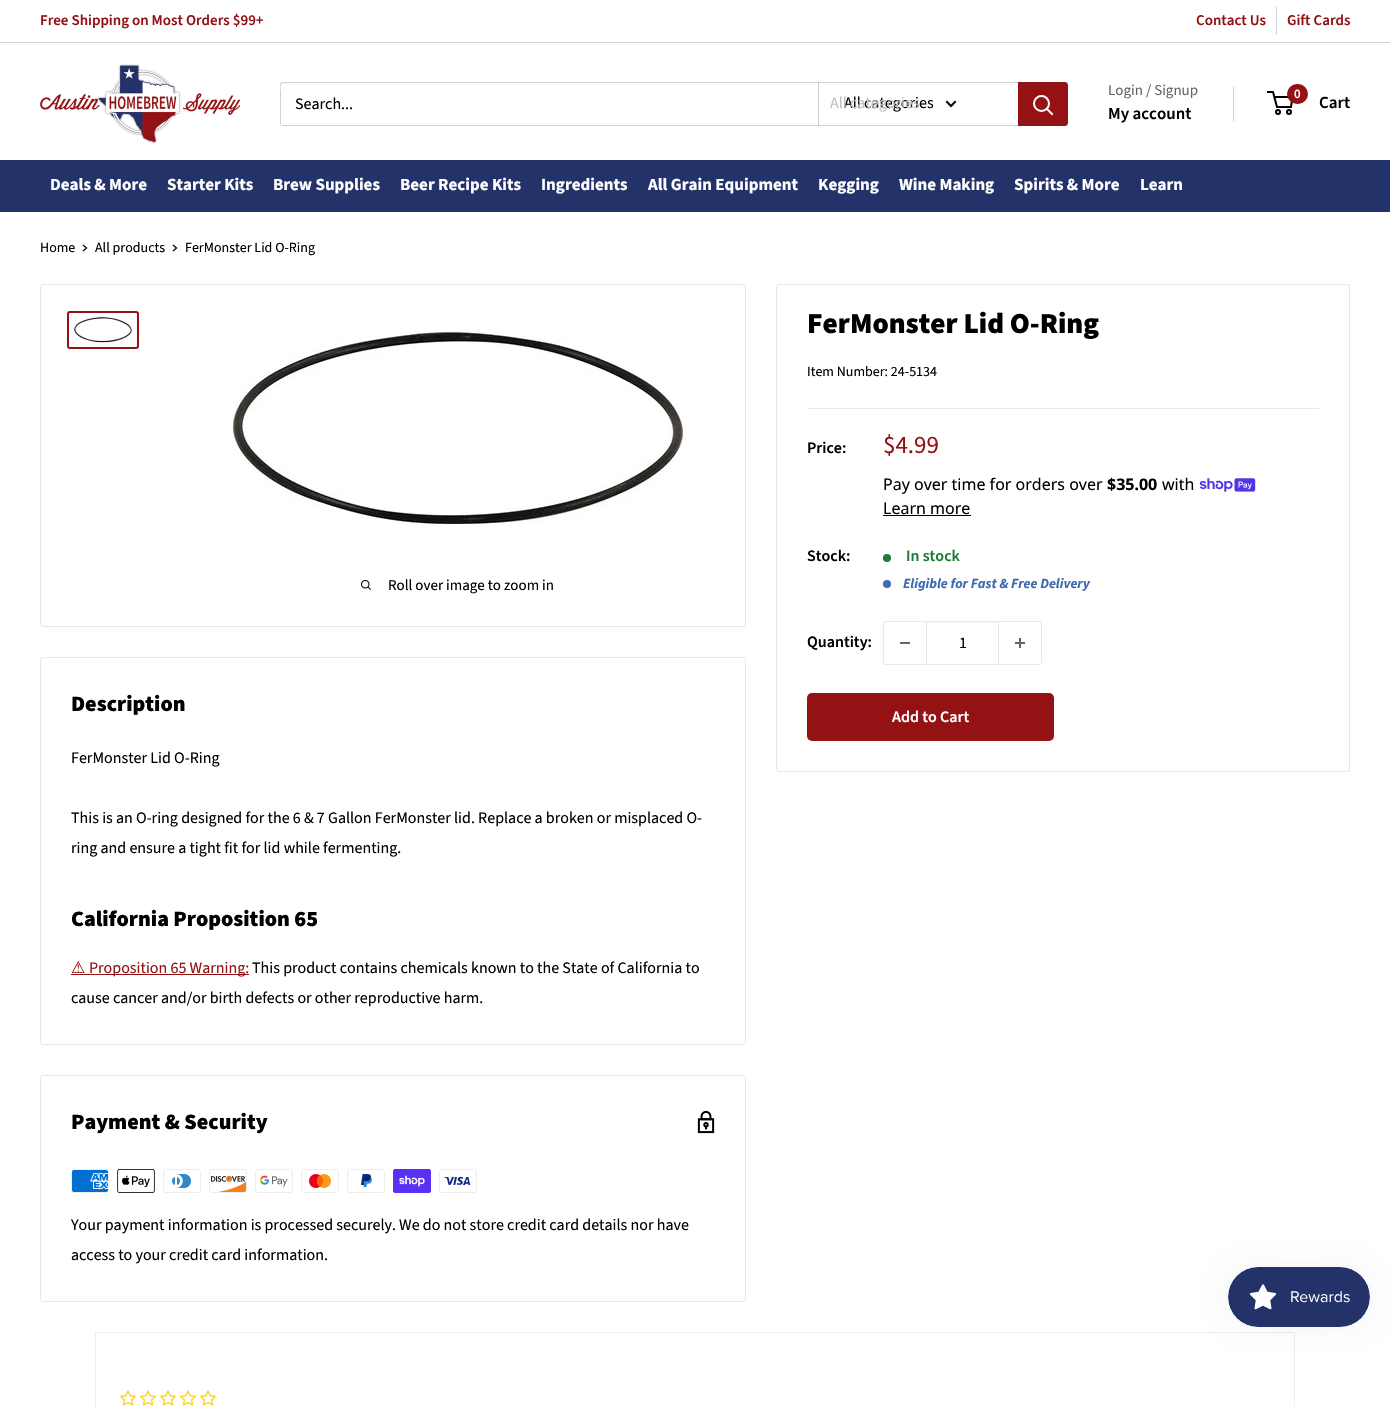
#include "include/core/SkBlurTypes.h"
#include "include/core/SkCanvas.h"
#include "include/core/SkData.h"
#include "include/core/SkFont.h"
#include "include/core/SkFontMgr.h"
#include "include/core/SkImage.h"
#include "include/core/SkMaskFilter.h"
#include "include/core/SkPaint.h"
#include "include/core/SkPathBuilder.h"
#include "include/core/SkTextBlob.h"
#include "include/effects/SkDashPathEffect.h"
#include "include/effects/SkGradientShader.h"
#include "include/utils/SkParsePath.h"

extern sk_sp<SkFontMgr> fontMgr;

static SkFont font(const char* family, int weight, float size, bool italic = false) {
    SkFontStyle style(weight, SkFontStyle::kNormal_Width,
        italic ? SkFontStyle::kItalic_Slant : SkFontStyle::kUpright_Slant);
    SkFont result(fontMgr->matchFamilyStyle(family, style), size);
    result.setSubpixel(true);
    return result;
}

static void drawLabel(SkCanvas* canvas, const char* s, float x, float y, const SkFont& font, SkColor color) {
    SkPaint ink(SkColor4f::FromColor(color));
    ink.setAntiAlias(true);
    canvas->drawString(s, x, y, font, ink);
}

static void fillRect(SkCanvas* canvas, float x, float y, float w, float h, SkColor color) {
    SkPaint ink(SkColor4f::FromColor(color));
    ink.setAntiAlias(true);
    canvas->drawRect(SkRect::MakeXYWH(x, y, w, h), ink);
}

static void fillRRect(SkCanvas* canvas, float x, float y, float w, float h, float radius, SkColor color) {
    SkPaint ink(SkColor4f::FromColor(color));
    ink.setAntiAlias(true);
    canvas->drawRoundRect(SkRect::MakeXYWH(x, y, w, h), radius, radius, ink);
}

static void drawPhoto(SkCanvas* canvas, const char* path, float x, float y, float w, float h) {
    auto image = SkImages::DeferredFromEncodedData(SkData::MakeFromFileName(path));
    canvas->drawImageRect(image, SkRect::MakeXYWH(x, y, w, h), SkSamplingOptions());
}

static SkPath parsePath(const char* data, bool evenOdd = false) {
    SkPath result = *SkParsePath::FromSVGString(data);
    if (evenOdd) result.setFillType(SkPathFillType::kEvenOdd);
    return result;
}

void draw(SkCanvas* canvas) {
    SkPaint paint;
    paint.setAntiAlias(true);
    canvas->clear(0xFFFFFFFF);
    fillRect(canvas, 0, 42, 1390, 1, 0xFFD1D1D1);
    SkFont font1 = font("Source Sans Pro", 600, 15);
    drawLabel(canvas, "Free Shipping on Most Orders $99+", 40, 25, font1, 0xFF941114);
    drawLabel(canvas, "Contact Us", 1196, 25, font1, 0xFF941114);
    fillRect(canvas, 1276, 7, 1, 28, 0xFFD1D1D1);
    drawLabel(canvas, "Gift Cards", 1287, 25, font1, 0xFF941114);
    drawPhoto(canvas, "assets/img1.png", 40, 64, 200, 80);
    paint.setColor(0xFFD1D1D1);
    canvas->drawPath(parsePath("M281 125L283 126H1065C1066 126 1067 125 1068 124V85L1067 83V116C1067 118 1069 125 1064 125Z"), paint);
    canvas->drawPath(parsePath("M284 83H1067C1067 82 1066 82 1065 82H283C281 82 280 83 280 85V123C280 124 280 125 281 125V92C281 90 279 83 284 83Z"), paint);
    SkFont font2 = font("Source Sans Pro", 400, 16);
    drawLabel(canvas, "Search...", 295, 109, font2, 0xFF000000);
    fillRect(canvas, 818, 82, 1, 44, 0x4D666666);
    drawLabel(canvas, "All categories", 844, 108, font2, 0xFF000000);
    drawLabel(canvas, "All categories", 830, 108, font2, 0xFFBFBFBF);
    paint.setStroke(true);
    paint.setStrokeWidth(2);
    paint.setStrokeCap(SkPaint::kSquare_Cap);
    paint.setColor(0xFF000000);
    canvas->drawPath(parsePath("M955 102L951 106L947 102"), paint);
    paint.setStroke(false);
    paint.setColor(0xFF941114);
    canvas->drawPath(parsePath("M1018 82H1065C1066.5 82 1068 83.5 1068 85V123C1068 124.5 1066.5 126 1065 126H1018Z"), paint);
    paint.setStroke(true);
    paint.setColor(0xFFFFFFFF);
    canvas->drawPath(parsePath("M1052 114L1047 109"), paint);
    paint.setStrokeCap(SkPaint::kButt_Cap);
    canvas->drawCircle(1041.5f, 103.5f, 7.5f, paint);
    SkFont font3 = font("Source Sans Pro", 400, 15);
    drawLabel(canvas, "Login / Signup", 1108, 95, font3, 0xFF666666);
    fillRect(canvas, 1233, 87, 1, 34, 0xFFD1D1D1);
    SkFont font4 = font("Source Sans Pro", 600, 17);
    drawLabel(canvas, "My account", 1108, 119, font4, 0xFF000000);
    paint.setColor(0xFF000000);
    canvas->drawCircle(1278, 112, 2, paint);
    canvas->drawCircle(1289, 112, 2, paint);
    canvas->drawPath(parsePath("M1274.5 97H1292.5L1291 107H1277L1273 92H1267"), paint);
    fillRRect(canvas, 1287, 84, 21, 20, 10, 0xFF941114);
    SkFont font5 = font("Source Sans Pro", 600, 13);
    drawLabel(canvas, "0", 1294, 98, font5, 0xFFFFFFFF);
    drawLabel(canvas, "Cart", 1319, 108, font4, 0xFF000000);
    fillRect(canvas, 0, 160, 1390, 52, 0xFF233269);
    SkFont font6 = font("Source Sans Pro", 700, 17);
    drawLabel(canvas, "Deals & More", 50, 190, font6, 0xFFFFFFFF);
    drawLabel(canvas, "Starter Kits", 167, 190, font6, 0xFFFFFFFF);
    drawLabel(canvas, "Brew Supplies", 273, 190, font6, 0xFFFFFFFF);
    drawLabel(canvas, "Beer Recipe Kits", 400, 190, font6, 0xFFFFFFFF);
    drawLabel(canvas, "Ingredients", 541, 190, font6, 0xFFFFFFFF);
    drawLabel(canvas, "All Grain Equipment", 648, 190, font6, 0xFFFFFFFF);
    drawLabel(canvas, "Kegging", 818, 190, font6, 0xFFFFFFFF);
    drawLabel(canvas, "Wine Making", 899, 190, font6, 0xFFFFFFFF);
    drawLabel(canvas, "Spirits & More", 1014, 190, font6, 0xFFFFFFFF);
    drawLabel(canvas, "Learn", 1140, 190, font6, 0xFFFFFFFF);
    SkFont font7 = font("Source Sans Pro", 400, 14);
    drawLabel(canvas, "Home", 40, 252, font7, 0xFF000000);
    paint.setStrokeWidth(1.3f);
    paint.setStrokeCap(SkPaint::kSquare_Cap);
    canvas->drawPath(parsePath("M83.5 245.5L86.5 248L83.5 250.5"), paint);
    drawLabel(canvas, "All products", 95, 252, font7, 0xFF000000);
    canvas->drawPath(parsePath("M173.5 245.5L176.5 248L173.5 250.5"), paint);
    drawLabel(canvas, "FerMonster Lid O-Ring", 185, 252, font7, 0xFF000000);
    paint.setStrokeWidth(1);
    paint.setStrokeCap(SkPaint::kButt_Cap);
    paint.setColor(0xFFE8E8E8);
    canvas->drawRoundRect(SkRect::MakeXYWH(40.5f, 284.5f, 705, 342), 2.5f, 2.5f, paint);
    paint.setStrokeWidth(2);
    paint.setColor(0xFF941114);
    canvas->drawRoundRect(SkRect::MakeXYWH(68, 312, 70, 36), 2, 2, paint);
    drawPhoto(canvas, "assets/img2.png", 73, 317, 60, 26);
    drawPhoto(canvas, "assets/img3.png", 232, 331, 452, 196);
    drawPhoto(canvas, "assets/img4.png", 361, 580, 10, 10);
    drawLabel(canvas, "Roll over image to zoom in", 388, 590, font3, 0xFF000000);
    paint.setStrokeWidth(1);
    paint.setColor(0xFFE8E8E8);
    canvas->drawRoundRect(SkRect::MakeXYWH(776.5f, 284.5f, 573, 487), 2.5f, 2.5f, paint);
    SkFont font8 = font("Source Sans Pro", 900, 29);
    drawLabel(canvas, "FerMonster Lid O-Ring", 807, 333, font8, 0xFF000000);
    drawLabel(canvas, "Item Number: 24-5134", 807, 376, font7, 0xFF000000);
    fillRect(canvas, 807, 408, 512, 1, 0xFFE8E8E8);
    SkFont font9 = font("Source Sans Pro", 600, 16);
    drawLabel(canvas, "Price:", 807, 453, font9, 0xFF000000);
    SkFont font10 = font("Source Sans Pro", 400, 25);
    drawLabel(canvas, "$4.99", 883, 453, font10, 0xFF941114);
    SkFont font11 = font("Noto Sans", 400, 16);
    drawLabel(canvas, "Pay over time for orders over", 883, 490, font11, 0xFF000000);
    SkFont font12 = font("Noto Sans", 700, 16);
    drawLabel(canvas, "$35.00", 1107, 490, font12, 0xFF000000);
    drawLabel(canvas, "with", 1162, 490, font11, 0xFF000000);
    drawPhoto(canvas, "assets/img5.png", 1199, 478, 57, 14);
    drawLabel(canvas, "Learn more", 883, 514, font11, 0xFF000000);
    fillRect(canvas, 883, 515, 88, 1, 0xFF000000);
    drawLabel(canvas, "Stock:", 807, 561, font9, 0xFF000000);
    paint.setStroke(false);
    paint.setColor(0xFF1C7B36);
    canvas->drawCircle(887, 558, 4, paint);
    drawLabel(canvas, "In stock", 906, 561, font9, 0xFF1C7B36);
    paint.setColor(0xFF3F6AB1);
    canvas->drawCircle(887, 584, 4, paint);
    SkFont font13 = font("Source Sans Pro", 700, 14, true);
    drawLabel(canvas, "Eligible for Fast & Free Delivery", 903, 588, font13, 0xFF3F6AB1);
    drawLabel(canvas, "Quantity:", 807, 647, font9, 0xFF000000);
    paint.setStroke(true);
    paint.setColor(0xFFE8E8E8);
    canvas->drawRoundRect(SkRect::MakeXYWH(883.5f, 621.5f, 158, 43), 2.5f, 2.5f, paint);
    fillRect(canvas, 900, 642, 10, 2, 0xFF666666);
    fillRect(canvas, 927, 622, 71, 1, 0xFFF6F6F6);
    fillRect(canvas, 998, 622, 1, 42, 0xFFE8E8E8);
    fillRect(canvas, 926, 622, 1, 42, 0xFFE8E8E8);
    drawLabel(canvas, "1", 959, 648, font2, 0xFF000000);
    drawPhoto(canvas, "assets/img6.png", 1015, 638, 10, 10);
    fillRRect(canvas, 807, 693, 247, 48, 5, 0xFF941114);
    drawLabel(canvas, "Add to Cart", 892, 722, font9, 0xFFFFFFFF);
    canvas->drawRoundRect(SkRect::MakeXYWH(40.5f, 657.5f, 705, 387), 2.5f, 2.5f, paint);
    SkFont font14 = font("Source Sans Pro", 900, 22);
    drawLabel(canvas, "Description", 71, 711, font14, 0xFF000000);
    drawLabel(canvas, "FerMonster Lid O-Ring", 71, 763, font2, 0xFF000000);
    drawLabel(canvas, "This is an O-ring designed for the 6 & 7 Gallon FerMonster lid. Replace a broken or misplaced O-", 71, 823, font2, 0xFF000000);
    drawLabel(canvas, "ring and ensure a tight fit for lid while fermenting.", 71, 853, font2, 0xFF000000);
    drawLabel(canvas, "California Proposition 65", 71, 926, font14, 0xFF000000);
    SkFont font15 = font("DejaVu Sans", 400, 16);
    drawLabel(canvas, "⚠", 71, 973, font15, 0xFF941114);
    fillRect(canvas, 71, 974, 178, 1, 0xFF941114);
    drawLabel(canvas, "Proposition 65 Warning:", 89, 973, font2, 0xFF941114);
    drawLabel(canvas, "This product contains chemicals known to the State of California to", 252, 973, font2, 0xFF000000);
    drawLabel(canvas, "cause cancer and/or birth defects or other reproductive harm.", 71, 1003, font2, 0xFF000000);
    canvas->drawRoundRect(SkRect::MakeXYWH(40.5f, 1075.5f, 705, 226), 2.5f, 2.5f, paint);
    drawLabel(canvas, "Payment & Security", 71, 1129, font14, 0xFF000000);
    drawPhoto(canvas, "assets/img7.png", 697, 1110, 18, 24);
    drawPhoto(canvas, "assets/img8.png", 71, 1169, 38, 24);
    drawPhoto(canvas, "assets/img9.png", 117, 1169, 38, 24);
    drawPhoto(canvas, "assets/img10.png", 163, 1169, 38, 24);
    drawPhoto(canvas, "assets/img11.png", 209, 1169, 38, 24);
    drawPhoto(canvas, "assets/img12.png", 255, 1169, 38, 24);
    drawPhoto(canvas, "assets/img13.png", 301, 1169, 38, 24);
    drawPhoto(canvas, "assets/img14.png", 347, 1169, 38, 24);
    drawPhoto(canvas, "assets/img15.png", 393, 1169, 38, 24);
    drawPhoto(canvas, "assets/img16.png", 439, 1169, 38, 24);
    drawLabel(canvas, "Your payment information is processed securely. We do not store credit card details nor have", 71, 1230, font2, 0xFF000000);
    drawLabel(canvas, "access to your credit card information.", 71, 1260, font2, 0xFF000000);
    paint.setColor(0xFFEEEEEE);
    canvas->drawRect(SkRect::MakeXYWH(95.5f, 1332.5f, 1199, 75), paint);
    drawPhoto(canvas, "assets/img17.png", 120, 1390, 16, 16);
    drawPhoto(canvas, "assets/img17.png", 140, 1390, 16, 16);
    drawPhoto(canvas, "assets/img17.png", 160, 1390, 16, 16);
    drawPhoto(canvas, "assets/img17.png", 180, 1390, 16, 16);
    drawPhoto(canvas, "assets/img17.png", 200, 1390, 16, 16);
    paint.setStroke(false);
    paint.setColor(0x0D000000);
    paint.setMaskFilter(SkMaskFilter::MakeBlur(kNormal_SkBlurStyle, 12.5f));
    canvas->drawRoundRect(SkRect::MakeXYWH(1228, 1267, 142, 60), 30, 30, paint);
    paint.setMaskFilter(nullptr);
    drawPhoto(canvas, "assets/img18.png", 1228, 1267, 142, 60);
}
